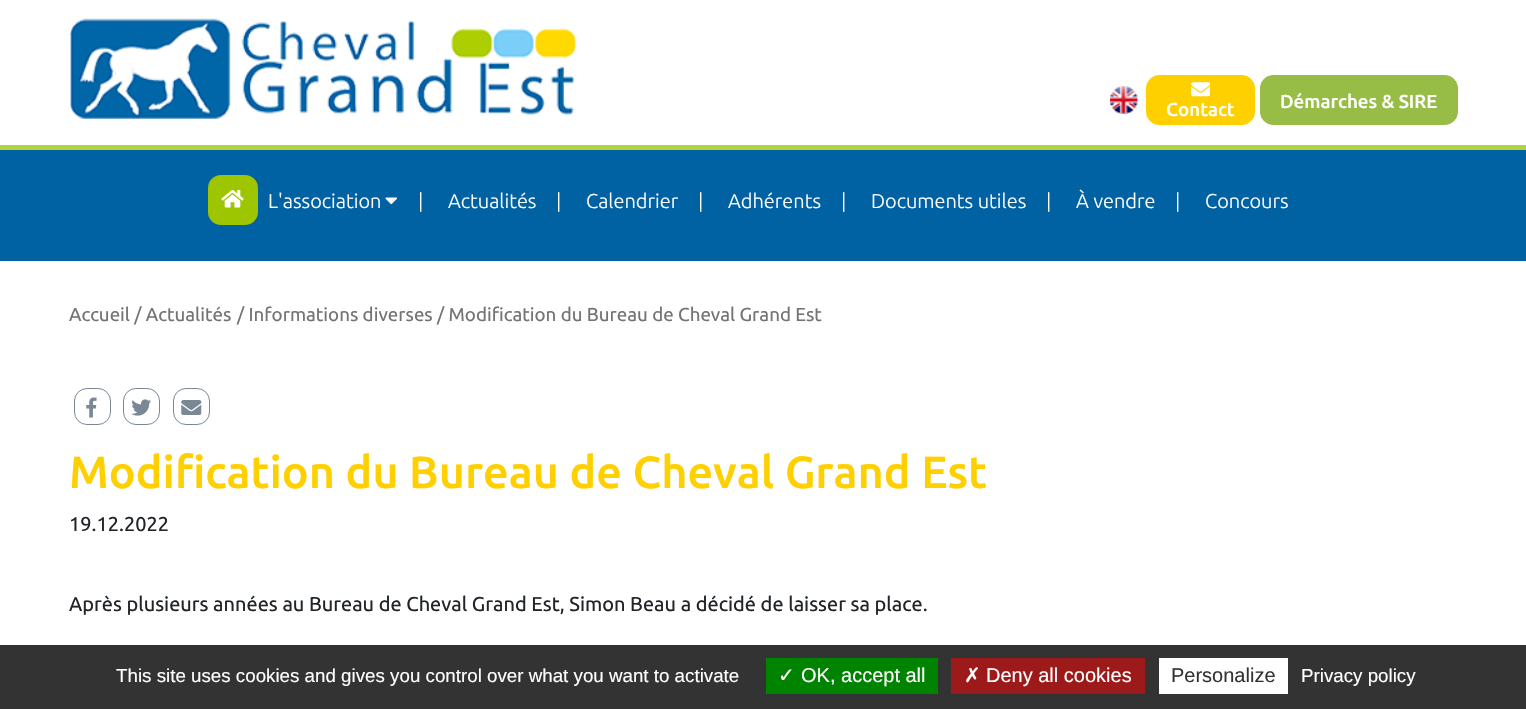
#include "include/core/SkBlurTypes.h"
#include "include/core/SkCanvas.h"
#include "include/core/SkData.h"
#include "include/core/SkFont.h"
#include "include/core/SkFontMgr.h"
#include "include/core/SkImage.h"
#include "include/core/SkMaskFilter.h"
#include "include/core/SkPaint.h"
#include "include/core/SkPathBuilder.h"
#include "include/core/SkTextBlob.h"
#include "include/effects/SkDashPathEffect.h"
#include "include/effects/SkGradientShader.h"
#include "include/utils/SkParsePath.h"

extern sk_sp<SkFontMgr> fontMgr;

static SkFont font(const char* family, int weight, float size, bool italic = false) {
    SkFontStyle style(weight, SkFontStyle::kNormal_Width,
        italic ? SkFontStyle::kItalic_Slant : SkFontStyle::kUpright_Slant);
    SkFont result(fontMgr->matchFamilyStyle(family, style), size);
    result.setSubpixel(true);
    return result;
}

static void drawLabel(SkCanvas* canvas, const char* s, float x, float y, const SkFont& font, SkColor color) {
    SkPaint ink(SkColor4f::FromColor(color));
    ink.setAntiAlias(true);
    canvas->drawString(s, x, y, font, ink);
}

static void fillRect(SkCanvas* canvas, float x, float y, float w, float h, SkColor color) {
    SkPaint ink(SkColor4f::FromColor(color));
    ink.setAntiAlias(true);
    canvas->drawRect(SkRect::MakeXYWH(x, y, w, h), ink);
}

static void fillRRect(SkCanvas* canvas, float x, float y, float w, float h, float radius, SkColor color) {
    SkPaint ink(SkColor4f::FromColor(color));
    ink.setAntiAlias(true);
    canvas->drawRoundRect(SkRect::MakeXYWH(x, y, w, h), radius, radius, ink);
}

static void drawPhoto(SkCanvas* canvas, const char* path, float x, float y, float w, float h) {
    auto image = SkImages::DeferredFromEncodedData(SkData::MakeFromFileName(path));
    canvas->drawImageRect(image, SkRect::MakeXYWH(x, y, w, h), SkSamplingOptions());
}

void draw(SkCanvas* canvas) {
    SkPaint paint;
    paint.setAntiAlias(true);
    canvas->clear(0xFFFFFFFF);
    fillRect(canvas, 0, 145, 1526, 5, 0xFFB4D33B);
    drawPhoto(canvas, "assets/img1.png", 70, 18, 507, 101);
    drawPhoto(canvas, "assets/img2.png", 1110, 86, 28, 28);
    paint.setColor(0xFFFFD000);
    canvas->drawRoundRect(SkRect::MakeXYWH(1146.5f, 75.5f, 108, 49), 12.5f, 12.5f, paint);
    paint.setStroke(true);
    paint.setStrokeWidth(1);
    canvas->drawRoundRect(SkRect::MakeXYWH(1146.5f, 75.5f, 108, 49), 12.5f, 12.5f, paint);
    drawPhoto(canvas, "assets/img3.png", 1191, 82, 19, 15);
    SkFont font1 = font("Ubuntu", 500, 18.75f);
    drawLabel(canvas, "Contact", 1166, 116, font1, 0xFFFFFFFF);
    paint.setStroke(false);
    paint.setColor(0xFF97BD46);
    canvas->drawRoundRect(SkRect::MakeXYWH(1260.5f, 75.5f, 197, 49), 12.5f, 12.5f, paint);
    paint.setStroke(true);
    canvas->drawRoundRect(SkRect::MakeXYWH(1260.5f, 75.5f, 197, 49), 12.5f, 12.5f, paint);
    drawLabel(canvas, "Démarches & SIRE", 1280, 108, font1, 0xFFFFFFFF);
    fillRect(canvas, 0, 150, 1526, 111, 0xFF0062A2);
    fillRRect(canvas, 208, 175, 50, 50, 13, 0xFF9DC500);
    drawPhoto(canvas, "assets/img4.png", 221, 190, 23, 18);
    SkFont font2 = font("Ubuntu", 300, 20);
    drawLabel(canvas, "L'association", 268, 208, font2, 0xFFFFFFFF);
    drawPhoto(canvas, "assets/img5.png", 385, 197, 12, 8);
    drawLabel(canvas, "|", 418, 208, font2, 0xFFFFFFFF);
    drawLabel(canvas, "Actualités", 448, 208, font2, 0xFFFFFFFF);
    drawLabel(canvas, "|", 556, 208, font2, 0xFFFFFFFF);
    drawLabel(canvas, "Calendrier", 586, 208, font2, 0xFFFFFFFF);
    drawLabel(canvas, "|", 698, 208, font2, 0xFFFFFFFF);
    drawLabel(canvas, "Adhérents", 728, 208, font2, 0xFFFFFFFF);
    drawLabel(canvas, "|", 841, 208, font2, 0xFFFFFFFF);
    drawLabel(canvas, "Documents utiles", 871, 208, font2, 0xFFFFFFFF);
    drawLabel(canvas, "|", 1046, 208, font2, 0xFFFFFFFF);
    drawLabel(canvas, "À vendre", 1076, 208, font2, 0xFFFFFFFF);
    drawLabel(canvas, "|", 1175, 208, font2, 0xFFFFFFFF);
    drawLabel(canvas, "Concours", 1205, 208, font2, 0xFFFFFFFF);
    SkFont font3 = font("Ubuntu", 400, 18.75f);
    drawLabel(canvas, "Accueil / Actualités", 69, 321, font3, 0xFF737475);
    drawLabel(canvas, "/ Informations diverses", 237, 321, font3, 0xFF737475);
    drawLabel(canvas, "/ Modification du Bureau de Cheval Grand Est", 437, 321, font3, 0xFF737475);
    paint.setColor(0xFF798894);
    canvas->drawRoundRect(SkRect::MakeXYWH(74.5f, 388.5f, 36, 36), 12.5f, 12.5f, paint);
    drawPhoto(canvas, "assets/img6.png", 86, 397, 11, 21);
    canvas->drawRoundRect(SkRect::MakeXYWH(123.5f, 388.5f, 36, 36), 12.5f, 12.5f, paint);
    drawPhoto(canvas, "assets/img7.png", 131, 399, 20, 17);
    canvas->drawRoundRect(SkRect::MakeXYWH(173.5f, 388.5f, 36, 36), 12.5f, 12.5f, paint);
    drawPhoto(canvas, "assets/img8.png", 181, 400, 21, 15);
    SkFont font4 = font("Ubuntu", 500, 45);
    drawLabel(canvas, "Modification du Bureau de Cheval Grand Est", 69, 488, font4, 0xFFFFD000);
    SkFont font5 = font("Ubuntu", 400, 20);
    drawLabel(canvas, "19.12.2022", 69, 531, font5, 0xFF212529);
    drawLabel(canvas, "Après plusieurs années au Bureau de Cheval Grand Est, Simon Beau a décidé de laisser sa place.", 69, 611, font5, 0xFF212529);
    fillRect(canvas, 0, 645, 1526, 64, 0xFF333333);
    SkFont font6 = font("Liberation Sans", 400, 18.75f);
    drawLabel(canvas, "This site uses cookies and gives you control over what you want to activate", 116, 682, font6, 0xFFFFFFFF);
    fillRect(canvas, 766, 658, 172, 36, 0xFF008300);
    SkFont font7 = font("DejaVu Sans", 400, 20);
    drawLabel(canvas, "✓", 778, 682, font7, 0xFFFFFFFF);
    SkFont font8 = font("Liberation Sans", 400, 20);
    drawLabel(canvas, "OK, accept all", 801, 682, font8, 0xFFFFFFFF);
    fillRect(canvas, 951, 658, 194, 36, 0xFF9C1A1A);
    drawLabel(canvas, "✗", 964, 682, font7, 0xFFFFFFFF);
    drawLabel(canvas, "Deny all cookies", 986, 682, font8, 0xFFFFFFFF);
    fillRect(canvas, 1159, 658, 129, 36, 0xFFFFFFFF);
    drawLabel(canvas, "Personalize", 1171, 682, font8, 0xFF333333);
    drawLabel(canvas, "Privacy policy", 1301, 682, font6, 0xFFFFFFFF);
}
